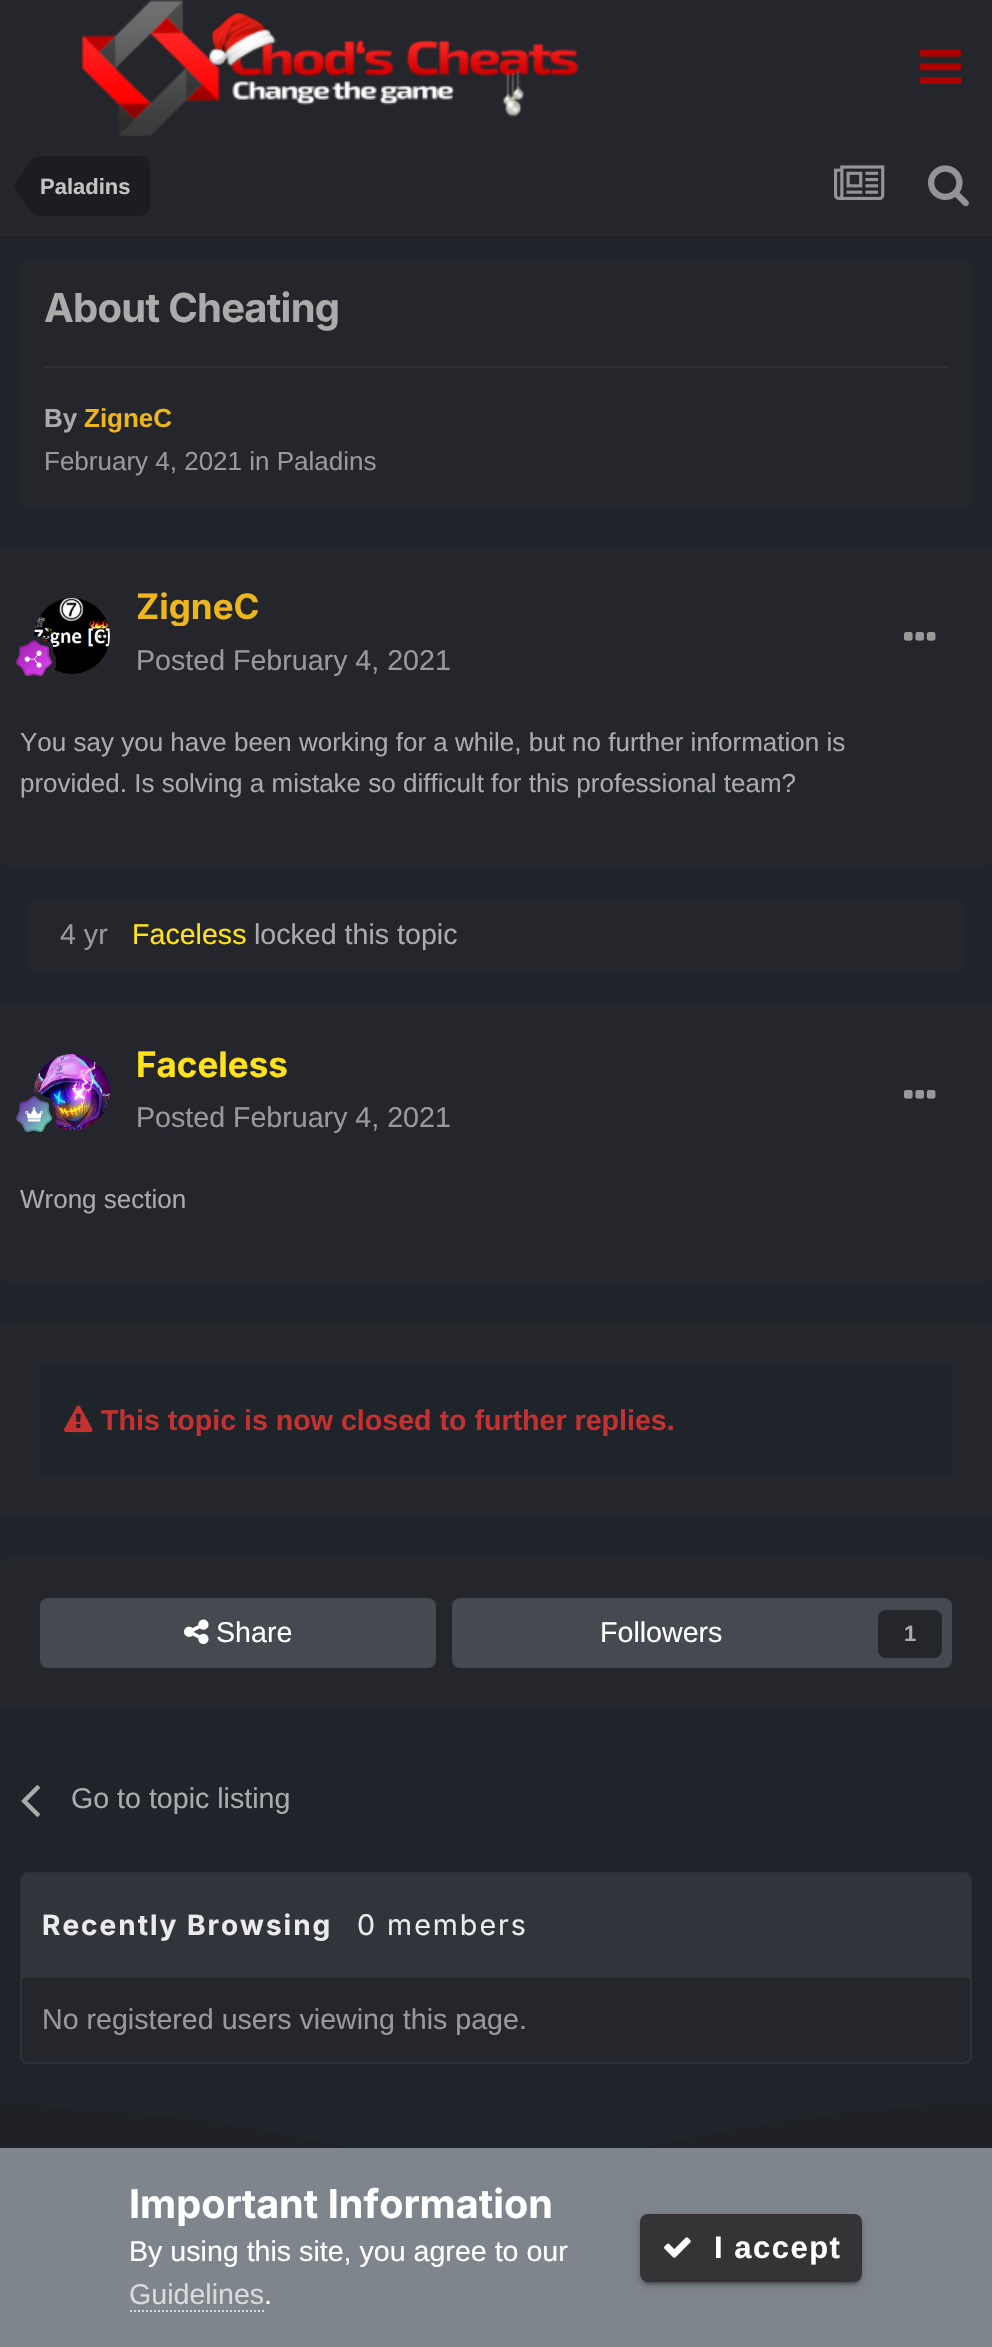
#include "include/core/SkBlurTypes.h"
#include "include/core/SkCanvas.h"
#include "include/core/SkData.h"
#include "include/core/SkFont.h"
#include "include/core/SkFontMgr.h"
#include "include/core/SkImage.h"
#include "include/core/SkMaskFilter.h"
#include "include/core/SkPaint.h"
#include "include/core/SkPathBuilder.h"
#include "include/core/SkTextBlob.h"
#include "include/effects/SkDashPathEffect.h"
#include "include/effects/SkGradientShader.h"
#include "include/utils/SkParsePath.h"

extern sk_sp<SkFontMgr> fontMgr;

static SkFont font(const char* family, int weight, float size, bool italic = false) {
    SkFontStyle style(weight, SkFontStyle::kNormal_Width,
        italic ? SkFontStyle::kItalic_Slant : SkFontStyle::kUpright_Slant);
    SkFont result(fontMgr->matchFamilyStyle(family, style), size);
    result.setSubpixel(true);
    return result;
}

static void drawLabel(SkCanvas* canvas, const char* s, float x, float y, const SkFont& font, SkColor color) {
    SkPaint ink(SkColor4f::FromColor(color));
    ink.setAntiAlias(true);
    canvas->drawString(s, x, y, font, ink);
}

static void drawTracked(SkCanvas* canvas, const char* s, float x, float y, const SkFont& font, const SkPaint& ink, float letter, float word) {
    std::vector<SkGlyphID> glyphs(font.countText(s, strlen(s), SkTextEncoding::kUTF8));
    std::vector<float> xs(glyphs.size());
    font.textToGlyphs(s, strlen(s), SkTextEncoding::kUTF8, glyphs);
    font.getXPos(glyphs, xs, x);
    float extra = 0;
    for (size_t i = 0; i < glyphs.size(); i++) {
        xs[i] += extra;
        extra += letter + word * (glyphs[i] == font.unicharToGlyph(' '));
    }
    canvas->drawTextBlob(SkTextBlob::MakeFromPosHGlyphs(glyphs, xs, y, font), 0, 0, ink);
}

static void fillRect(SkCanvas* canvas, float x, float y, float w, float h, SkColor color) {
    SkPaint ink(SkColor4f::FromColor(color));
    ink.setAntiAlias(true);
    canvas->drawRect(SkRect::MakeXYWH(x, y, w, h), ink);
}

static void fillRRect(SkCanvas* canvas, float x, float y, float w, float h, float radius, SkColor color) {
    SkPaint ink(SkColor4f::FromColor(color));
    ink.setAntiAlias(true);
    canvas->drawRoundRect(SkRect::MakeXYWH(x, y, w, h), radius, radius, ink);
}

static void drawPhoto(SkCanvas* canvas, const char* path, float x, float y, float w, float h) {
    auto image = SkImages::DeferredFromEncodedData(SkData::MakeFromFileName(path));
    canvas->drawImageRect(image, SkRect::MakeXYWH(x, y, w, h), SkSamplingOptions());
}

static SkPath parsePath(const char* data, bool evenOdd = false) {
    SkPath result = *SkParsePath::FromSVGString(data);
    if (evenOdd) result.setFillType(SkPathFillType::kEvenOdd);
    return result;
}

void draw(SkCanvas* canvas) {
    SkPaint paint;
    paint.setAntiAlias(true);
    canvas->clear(0xFF24262B);
    drawPhoto(canvas, "assets/img1.png", 82, 0, 496, 136);
    drawPhoto(canvas, "assets/img2.png", 920, 49, 42, 35);
    fillRect(canvas, 0, 236, 992, 4, 0xFF202227);
    paint.setColor(0xFF1B1D20);
    canvas->drawPath(parsePath("M40 156H140C145.5 156 150 160.5 150 166V206C150 211.5 145.5 216 140 216H40Z"), paint);
    canvas->drawPath(parsePath("M40 186V216C36.5 216 33 214 30 211L15 189.5C14.5 188.5 14 187.5 14 186ZM40 186H14C14 184.5 14.5 183.5 15 182.5L30 161C33 158 36.5 156 40 156Z"), paint);
    SkFont font1 = font("Liberation Sans", 700, 22);
    drawLabel(canvas, "Paladins", 40, 194, font1, 0xFFC3C3C3);
    drawPhoto(canvas, "assets/img3.png", 834, 165, 51, 35);
    drawPhoto(canvas, "assets/img4.png", 928, 165, 41, 42);
    fillRect(canvas, 0, 240, 992, 1864, 0xFF1F232A);
    fillRRect(canvas, 20, 260, 952, 248, 8, 0xFF24262B);
    SkFont font2 = font("Inter", 700, 40);
    paint.setColor(0xFFABABAB);
    drawTracked(canvas, "About Cheating", 44, 322, font2, paint, -0.75f, 0);
    fillRect(canvas, 44, 366, 904, 2, 0xFF2F3135);
    SkFont font3 = font("Liberation Sans", 700, 26);
    drawLabel(canvas, "By", 44, 427, font3, 0xFFABABAB);
    drawLabel(canvas, "ZigneC", 84, 427, font3, 0xFFEEB61A);
    SkFont font4 = font("Liberation Sans", 400, 26);
    drawLabel(canvas, "February 4, 2021 in Paladins", 44, 470, font4, 0xFF999999);
    fillRRect(canvas, 0, 548, 992, 318, 8, 0xFF24262B);
    drawPhoto(canvas, "assets/img5.png", 34, 598, 76, 76);
    drawPhoto(canvas, "assets/img6.png", 16, 636, 40, 40);
    canvas->save();
    canvas->clipRect(SkRect::MakeXYWH(136, 588, 124, 38));
    SkFont font5 = font("Inter", 700, 35);
    drawLabel(canvas, "ZigneC", 136, 619, font5, 0xFFEEB61A);
    canvas->restore();
    SkFont font6 = font("Liberation Sans", 400, 28.6f);
    drawLabel(canvas, "Posted February 4, 2021", 136, 670, font6, 0xFF999999);
    drawPhoto(canvas, "assets/img7.png", 904, 632, 32, 9);
    drawLabel(canvas, "You say you have been working for a while, but no further information is", 20, 751, font4, 0xFFABABAB);
    drawLabel(canvas, "provided. Is solving a mistake so difficult for this professional team?", 20, 792, font4, 0xFFABABAB);
    fillRRect(canvas, 28, 898, 936, 74, 8, 0xFF24262B);
    drawLabel(canvas, "4 yr", 60, 944, font6, 0xFF999999);
    drawLabel(canvas, "Faceless", 132, 944, font6, 0xFFFFE11C);
    drawLabel(canvas, "locked this topic", 254, 944, font6, 0xFFABABAB);
    fillRRect(canvas, 0, 1004, 992, 278, 8, 0xFF24262B);
    drawPhoto(canvas, "assets/img8.png", 34, 1054, 76, 76);
    drawPhoto(canvas, "assets/img9.png", 16, 1092, 40, 40);
    drawLabel(canvas, "Faceless", 136, 1077, font5, 0xFFFFE11C);
    drawLabel(canvas, "Posted February 4, 2021", 136, 1127, font6, 0xFF999999);
    drawPhoto(canvas, "assets/img7.png", 904, 1090, 32, 9);
    drawLabel(canvas, "Wrong section", 20, 1208, font4, 0xFFABABAB);
    fillRRect(canvas, 0, 1322, 992, 196, 8, 0xFF24262B);
    fillRect(canvas, 40, 1362, 912, 116, 0xFF1F232A);
    drawPhoto(canvas, "assets/img10.png", 64, 1405, 29, 28);
    SkFont font7 = font("Liberation Sans", 700, 28.6f);
    drawLabel(canvas, "This topic is now closed to further replies.", 101, 1430, font7, 0xFFC53030);
    fillRRect(canvas, 0, 1558, 992, 150, 8, 0xFF24262B);
    fillRRect(canvas, 40, 1598, 396, 70, 8, 0xFF454A50);
    drawPhoto(canvas, "assets/img11.png", 184, 1619, 25, 25);
    drawLabel(canvas, "Share", 216, 1642, font6, 0xFFFFFFFF);
    fillRRect(canvas, 452, 1598, 500, 70, 8, 0xFF454A50);
    drawLabel(canvas, "Followers", 600, 1642, font6, 0xFFFFFFFF);
    fillRRect(canvas, 878, 1610, 64, 48, 8, 0xFF24262B);
    drawLabel(canvas, "1", 904, 1641, font1, 0xFFABABAB);
    drawPhoto(canvas, "assets/img12.png", 21, 1785, 19, 32);
    drawLabel(canvas, "Go to topic listing", 71, 1808, font6, 0xFFABABAB);
    paint.setColor(0xFF24262B);
    canvas->drawRoundRect(SkRect::MakeXYWH(21, 1873, 950, 190), 7, 7, paint);
    paint.setStroke(true);
    paint.setStrokeWidth(2);
    paint.setColor(0xFF2C3237);
    canvas->drawRoundRect(SkRect::MakeXYWH(21, 1873, 950, 190), 7, 7, paint);
    paint.setStroke(false);
    paint.setColor(0xFF31343B);
    canvas->drawPath(parsePath("M28 1874H964C967.5 1874 970 1876.5 970 1880V1976H22V1880C22 1876.5 24.5 1874 28 1874Z"), paint);
    fillRect(canvas, 22, 1976, 948, 2, 0xFF303335);
    SkFont font8 = font("Inter", 700, 28);
    paint.setColor(0xFFEBEBEB);
    drawTracked(canvas, "Recently Browsing", 42, 1935, font8, paint, 2, 0);
    SkFont font9 = font("Inter", 400, 28.6f);
    drawTracked(canvas, "0 members", 357, 1935, font9, paint, 2, 0);
    drawLabel(canvas, "No registered users viewing this page.", 42, 2029, font6, 0xFF999999);
    fillRect(canvas, 0, 2104, 992, 44, 0xFF1F2124);
    paint.setColor(0xFF1F232A);
    canvas->drawPath(parsePath("M30 2104C30 2104 31 2107 186 2118C321 2136 383 2164 496 2164V2104ZM962 2104C962 2104 892 2107 806 2118C671 2136 609 2164 496 2164V2104Z"), paint);
    fillRect(canvas, 0, 2148, 992, 199, 0xFF7F858D);
    SkFont font10 = font("Inter", 700, 39.6f);
    drawLabel(canvas, "Important Information", 129, 2218, font10, 0xFFFFFFFF);
    drawLabel(canvas, "By using this site, you agree to our", 129, 2261, font6, 0xFFFFFFFF);
    drawLabel(canvas, "Guidelines", 129, 2304, font6, 0xFFDADADA);
    paint.setStroke(true);
    paint.setColor(0xFFDADADA);
    paint.setPathEffect(SkDashPathEffect::Make({{2, 2}}, 0));
    canvas->drawPath(parsePath("M130 2311H264"), paint);
    paint.setPathEffect(nullptr);
    drawLabel(canvas, ".", 264, 2304, font6, 0xFFFFFFFF);
    paint.setStroke(false);
    paint.setColor(0x33000000);
    paint.setMaskFilter(SkMaskFilter::MakeBlur(kNormal_SkBlurStyle, 1));
    canvas->drawRoundRect(SkRect::MakeXYWH(644, 2224, 214, 60), 4, 4, paint);
    paint.setMaskFilter(nullptr);
    paint.setColor(0x1F000000);
    paint.setMaskFilter(SkMaskFilter::MakeBlur(kNormal_SkBlurStyle, 5));
    canvas->drawRoundRect(SkRect::MakeXYWH(640, 2216, 222, 68), 8, 8, paint);
    paint.setMaskFilter(nullptr);
    paint.setColor(0x24000000);
    paint.setMaskFilter(SkMaskFilter::MakeBlur(kNormal_SkBlurStyle, 2));
    canvas->drawRoundRect(SkRect::MakeXYWH(640, 2218, 222, 68), 8, 8, paint);
    paint.setMaskFilter(nullptr);
    fillRRect(canvas, 640, 2214, 222, 68, 8, 0xFF343436);
    drawPhoto(canvas, "assets/img13.png", 664, 2237, 27, 21);
    SkFont font11 = font("Liberation Sans", 700, 31);
    paint.setColor(0xFFFFFFFF);
    drawTracked(canvas, "I accept", 714, 2258, font11, paint, 1.5f, 0);
}
